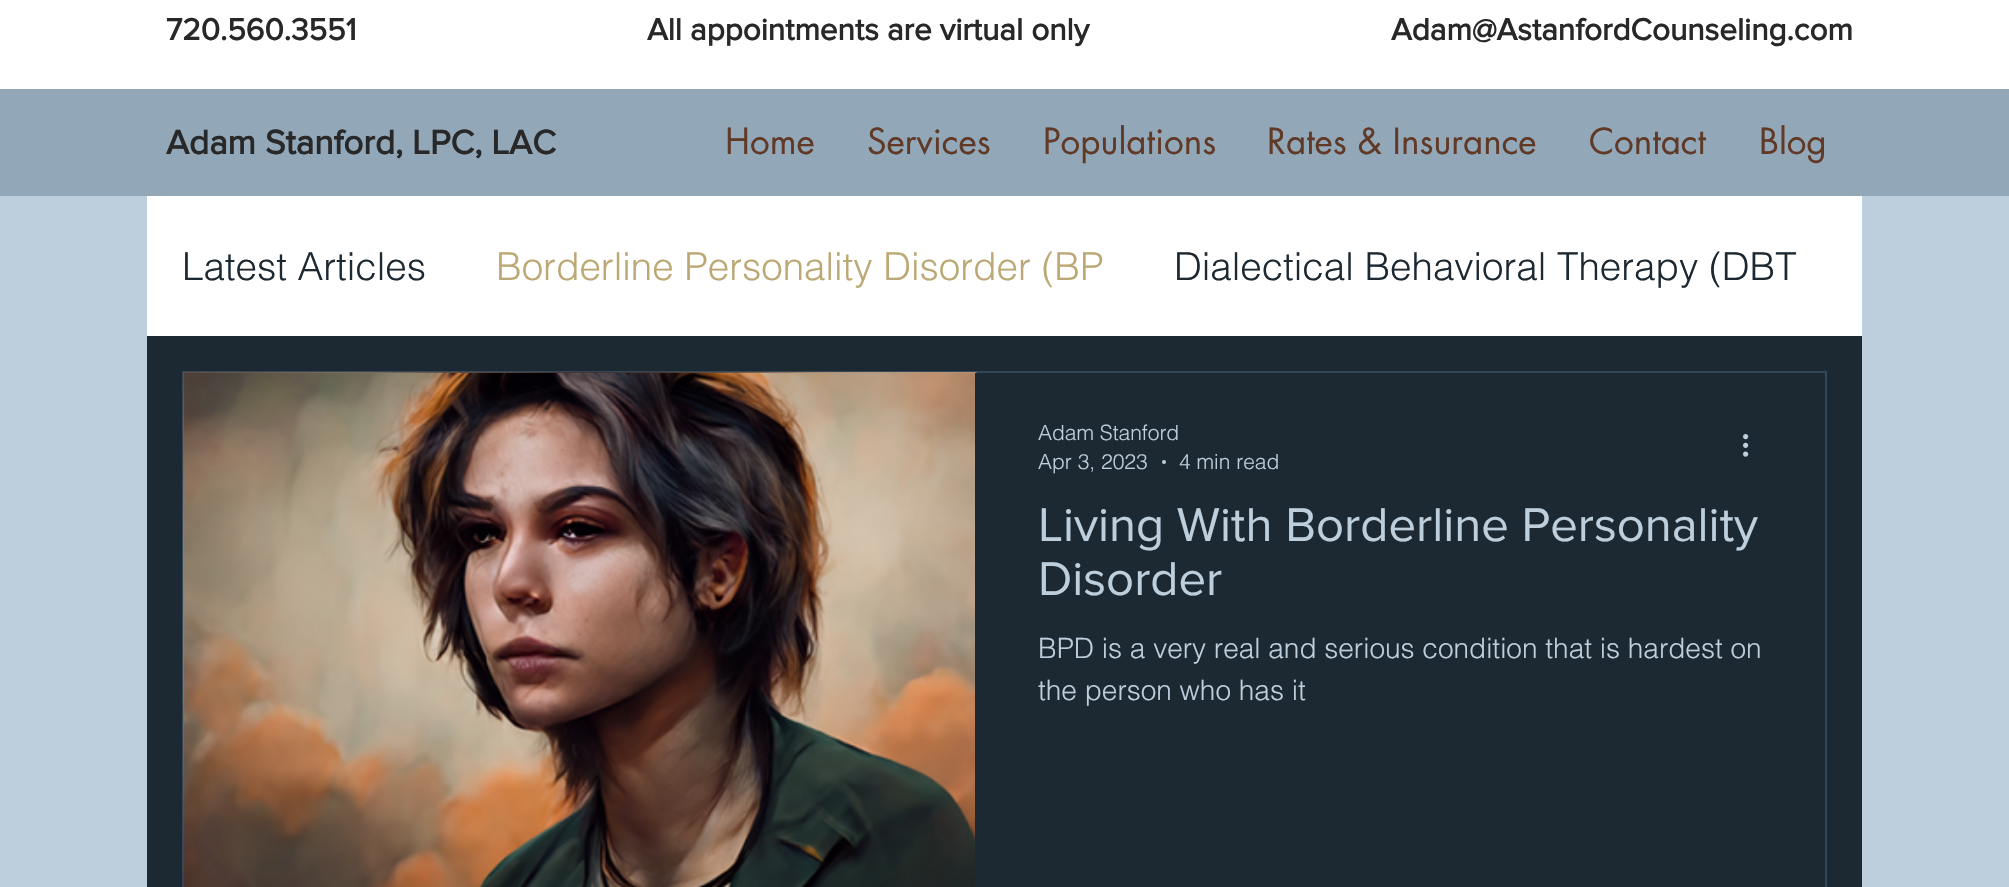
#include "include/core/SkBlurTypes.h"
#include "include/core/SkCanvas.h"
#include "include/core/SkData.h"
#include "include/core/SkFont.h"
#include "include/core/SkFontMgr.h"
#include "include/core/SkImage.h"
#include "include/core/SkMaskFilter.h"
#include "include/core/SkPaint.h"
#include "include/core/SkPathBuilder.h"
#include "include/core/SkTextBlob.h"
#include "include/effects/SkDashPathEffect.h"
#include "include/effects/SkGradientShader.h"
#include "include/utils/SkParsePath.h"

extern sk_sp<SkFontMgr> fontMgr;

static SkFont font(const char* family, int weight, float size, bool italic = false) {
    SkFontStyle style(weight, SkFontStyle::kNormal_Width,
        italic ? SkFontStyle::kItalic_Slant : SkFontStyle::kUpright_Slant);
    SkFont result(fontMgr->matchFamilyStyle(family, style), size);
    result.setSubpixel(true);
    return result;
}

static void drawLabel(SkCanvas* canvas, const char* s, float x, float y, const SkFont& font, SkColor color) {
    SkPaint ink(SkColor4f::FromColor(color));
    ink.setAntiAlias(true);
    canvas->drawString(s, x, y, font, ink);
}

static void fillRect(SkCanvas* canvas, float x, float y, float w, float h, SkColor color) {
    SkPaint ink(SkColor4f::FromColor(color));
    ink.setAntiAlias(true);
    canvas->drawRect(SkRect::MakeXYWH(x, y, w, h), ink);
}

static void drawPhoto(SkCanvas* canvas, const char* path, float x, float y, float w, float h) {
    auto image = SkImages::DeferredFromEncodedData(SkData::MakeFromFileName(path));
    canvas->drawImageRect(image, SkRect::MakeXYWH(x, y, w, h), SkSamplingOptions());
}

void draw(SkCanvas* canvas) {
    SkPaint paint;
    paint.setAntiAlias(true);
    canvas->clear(0xFFBDCEDC);
    fillRect(canvas, 0, 0, 2009, 89, 0xFFFFFFFF);
    SkFont font1 = font("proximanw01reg", 700, 31.5f);
    drawLabel(canvas, "720.560.3551", 166, 40, font1, 0xFF282828);
    drawLabel(canvas, "All appointments are virtual only", 647, 40, font1, 0xFF282828);
    drawLabel(canvas, "Adam@AstanfordCounseling.com", 1391, 40, font1, 0xFF282828);
    fillRect(canvas, 0, 89, 2009, 107, 0xFF92A8B9);
    SkFont font2 = font("proximanw01reg", 700, 35);
    drawLabel(canvas, "Adam Stanford, LPC, LAC", 166, 154, font2, 0xFF282828);
    SkFont font3 = font("futura", 400, 35);
    drawLabel(canvas, "Home", 725, 154, font3, 0xFF613927);
    drawLabel(canvas, "Services", 867, 154, font3, 0xFF613927);
    drawLabel(canvas, "Populations", 1043, 154, font3, 0xFF613927);
    drawLabel(canvas, "Rates & Insurance", 1267, 154, font3, 0xFF613927);
    drawLabel(canvas, "Contact", 1589, 154, font3, 0xFF613927);
    drawLabel(canvas, "Blog", 1759, 154, font3, 0xFF613927);
    fillRect(canvas, 147, 336, 1715, 551, 0xFF1D2932);
    fillRect(canvas, 147, 196, 1715, 140, 0xFFFFFFFF);
    SkFont font4 = font("helvetica", 300, 38.5f);
    drawLabel(canvas, "Latest Articles", 182, 280, font4, 0xFF1D2932);
    drawLabel(canvas, "Borderline Personality Disorder (BP", 496, 280, font4, 0xFFBCA874);
    drawLabel(canvas, "Dialectical Behavioral Therapy (DBT", 1174, 280, font4, 0xFF1D2932);
    paint.setStroke(true);
    paint.setStrokeWidth(2);
    paint.setColor(0xFF324758);
    canvas->drawRect(SkRect::MakeXYWH(183, 372, 1643, 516), paint);
    drawPhoto(canvas, "assets/img1.png", 183, 372, 794, 515);
    drawPhoto(canvas, "assets/img2.png", 184, 373, 791, 514);
    fillRect(canvas, 975, 373, 2, 514, 0xFF1D2932);
    SkFont font5 = font("helvetica", 300, 21);
    drawLabel(canvas, "Adam Stanford", 1038, 440, font5, 0xFFBDCEDC);
    drawLabel(canvas, "Apr 3, 2023", 1038, 469, font5, 0xFFBDCEDC);
    paint.setStroke(false);
    paint.setColor(0xFFBDCEDC);
    canvas->drawCircle(1164, 462, 2, paint);
    drawLabel(canvas, "4 min read", 1179, 469, font5, 0xFFBDCEDC);
    drawPhoto(canvas, "assets/img3.png", 1743, 434, 6, 23);
    SkFont font6 = font("proximanw01reg", 400, 49);
    drawLabel(canvas, "Living With Borderline Personality", 1038, 541, font6, 0xFFBDCEDC);
    drawLabel(canvas, "Disorder", 1038, 595, font6, 0xFFBDCEDC);
    SkFont font7 = font("helvetica", 300, 28);
    drawLabel(canvas, "BPD is a very real and serious condition that is hardest on", 1038, 658, font7, 0xFFBDCEDC);
    drawLabel(canvas, "the person who has it", 1038, 700, font7, 0xFFBDCEDC);
}
